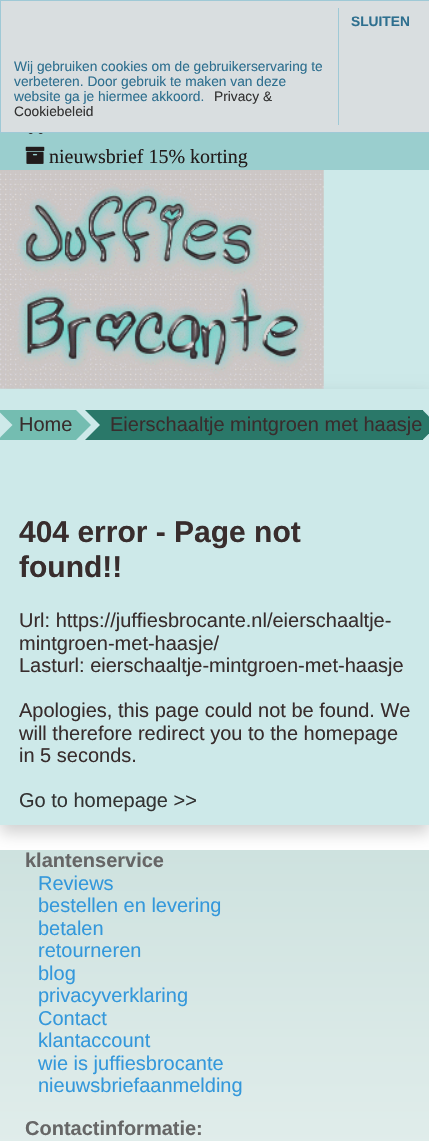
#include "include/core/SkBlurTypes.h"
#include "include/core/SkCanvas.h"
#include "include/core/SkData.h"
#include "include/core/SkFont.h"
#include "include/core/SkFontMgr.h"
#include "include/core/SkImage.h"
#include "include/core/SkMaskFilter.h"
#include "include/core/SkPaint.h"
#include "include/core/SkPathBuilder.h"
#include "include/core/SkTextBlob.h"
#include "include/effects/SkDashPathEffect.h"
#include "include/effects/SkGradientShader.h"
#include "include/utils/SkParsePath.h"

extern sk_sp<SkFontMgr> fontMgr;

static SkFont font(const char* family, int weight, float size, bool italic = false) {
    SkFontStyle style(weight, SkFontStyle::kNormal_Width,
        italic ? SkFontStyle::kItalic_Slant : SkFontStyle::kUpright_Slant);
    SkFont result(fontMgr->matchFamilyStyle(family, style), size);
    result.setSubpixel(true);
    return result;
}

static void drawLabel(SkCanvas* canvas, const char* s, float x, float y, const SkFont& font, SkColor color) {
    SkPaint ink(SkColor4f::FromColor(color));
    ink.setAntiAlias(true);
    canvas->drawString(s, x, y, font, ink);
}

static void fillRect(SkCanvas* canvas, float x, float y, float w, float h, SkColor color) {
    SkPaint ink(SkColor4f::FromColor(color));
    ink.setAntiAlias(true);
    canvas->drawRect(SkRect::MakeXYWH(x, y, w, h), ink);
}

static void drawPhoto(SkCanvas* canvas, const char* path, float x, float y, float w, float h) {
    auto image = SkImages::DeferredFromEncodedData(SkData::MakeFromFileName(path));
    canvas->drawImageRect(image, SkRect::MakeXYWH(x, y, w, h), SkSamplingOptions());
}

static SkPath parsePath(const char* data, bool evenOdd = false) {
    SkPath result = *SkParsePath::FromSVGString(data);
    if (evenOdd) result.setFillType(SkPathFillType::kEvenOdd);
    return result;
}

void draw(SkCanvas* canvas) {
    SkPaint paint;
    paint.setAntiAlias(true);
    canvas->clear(0xFFFFFFFF);
    paint.setColor(0xFFD9DEE0);
    canvas->drawRect(SkRect::MakeXYWH(0.5f, 0.5f, 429, 132), paint);
    paint.setStroke(true);
    paint.setStrokeWidth(1);
    paint.setColor(0xFF9FC9D6);
    canvas->drawRect(SkRect::MakeXYWH(0.5f, 0.5f, 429, 132), paint);
    fillRect(canvas, 338, 8, 1, 117, 0xFF9FC9D6);
    SkFont font1 = font("Liberation Sans", 700, 13.75f);
    drawLabel(canvas, "SLUITEN", 351, 26, font1, 0xFF2E6F8F);
    SkFont font2 = font("Liberation Sans", 400, 13.75f);
    drawLabel(canvas, "Wij gebruiken cookies om de gebruikerservaring te", 14, 71, font2, 0xFF2E6F8F);
    drawLabel(canvas, "verbeteren. Door gebruik te maken van deze", 14, 86, font2, 0xFF2E6F8F);
    drawLabel(canvas, "website ga je hiermee akkoord.", 14, 101, font2, 0xFF2E6F8F);
    drawLabel(canvas, "Privacy &", 214, 101, font2, 0xFF333333);
    drawLabel(canvas, "Cookiebeleid", 14, 116, font2, 0xFF333333);
    fillRect(canvas, 0, 133, 429, 37, 0xFF9ACECE);
    drawPhoto(canvas, "assets/img1.png", 28, 133, 15, 1);
    drawPhoto(canvas, "assets/img2.png", 25, 146, 20, 18);
    SkFont font3 = font("Liberation Serif", 400, 20);
    drawLabel(canvas, "nieuwsbrief 15% korting", 49, 163, font3, 0xFF211B1B);
    fillRect(canvas, 0, 170, 429, 655, 0xFFCDE9E9);
    canvas->save();
    canvas->clipPath(parsePath("M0 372H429V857H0ZM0 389H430V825H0Z", true), true);
    paint.setStroke(false);
    paint.setColor(0x2E000000);
    paint.setMaskFilter(SkMaskFilter::MakeBlur(kNormal_SkBlurStyle, 7.5f));
    canvas->drawRect(SkRect::MakeXYWH(0, 396, 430, 437), paint);
    paint.setMaskFilter(nullptr);
    canvas->restore();
    drawPhoto(canvas, "assets/img3.png", 0, 170, 324, 219);
    fillRect(canvas, 0, 410, 76, 30, 0xFF74BDB1);
    paint.setColor(0xFFCDE9E9);
    canvas->drawPath(parsePath("M-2.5 440V410L12.5 425Z"), paint);
    SkFont font4 = font("Liberation Sans", 400, 20);
    drawLabel(canvas, "Home", 19, 431, font4, 0xFF382D2D);
    fillRect(canvas, 85, 410, 338, 30, 0xFF2A7869);
    canvas->drawPath(parsePath("M85 440V410L100 425Z"), paint);
    paint.setColor(0xFF74BDB1);
    canvas->drawPath(parsePath("M76 440V410L91 425Z"), paint);
    drawLabel(canvas, "Eierschaaltje mintgroen met haasje", 110, 431, font4, 0xFF382D2D);
    paint.setColor(0xFF2A7869);
    canvas->drawPath(parsePath("M422.5 440V410L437.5 425Z"), paint);
    SkFont font5 = font("Liberation Sans", 700, 30);
    drawLabel(canvas, "404 error - Page not", 19, 542, font5, 0xFF382D2D);
    drawLabel(canvas, "found!!", 19, 577, font5, 0xFF382D2D);
    drawLabel(canvas, "Url: https://juffiesbrocante.nl/eierschaaltje-", 19, 627, font4, 0xFF382D2D);
    drawLabel(canvas, "mintgroen-met-haasje/", 19, 650, font4, 0xFF382D2D);
    drawLabel(canvas, "Lasturl: eierschaaltje-mintgroen-met-haasje", 19, 672, font4, 0xFF382D2D);
    drawLabel(canvas, "Apologies, this page could not be found. We", 19, 717, font4, 0xFF382D2D);
    drawLabel(canvas, "will therefore redirect you to the homepage", 19, 740, font4, 0xFF382D2D);
    drawLabel(canvas, "in 5 seconds.", 19, 762, font4, 0xFF382D2D);
    drawLabel(canvas, "Go to homepage >>", 19, 807, font4, 0xFF333333);
    {
        const SkColor colors[] = {0xFFCEE2DF, 0xFFFFFFFF};
        const float stops[] = {0, 1};
        const SkPoint ends[] = {{215, 850}, {215, 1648}};
        paint.setShader(SkGradientShader::MakeLinear(ends, colors, stops, 2, SkTileMode::kClamp));
        paint.setAlpha(255);
    }
    canvas->drawRect(SkRect::MakeXYWH(0, 850, 429, 291), paint);
    SkFont font6 = font("Liberation Sans", 700, 20);
    drawLabel(canvas, "klantenservice", 25, 867, font6, 0xFF666666);
    drawLabel(canvas, "Reviews", 38, 890, font4, 0xFF3498DB);
    drawLabel(canvas, "bestellen en levering", 38, 912, font4, 0xFF3498DB);
    drawLabel(canvas, "betalen", 38, 935, font4, 0xFF3498DB);
    drawLabel(canvas, "retourneren", 38, 957, font4, 0xFF3498DB);
    drawLabel(canvas, "blog", 38, 980, font4, 0xFF3498DB);
    drawLabel(canvas, "privacyverklaring", 38, 1002, font4, 0xFF3498DB);
    drawLabel(canvas, "Contact", 38, 1025, font4, 0xFF3498DB);
    drawLabel(canvas, "klantaccount", 38, 1047, font4, 0xFF3498DB);
    drawLabel(canvas, "wie is juffiesbrocante", 38, 1070, font4, 0xFF3498DB);
    drawLabel(canvas, "nieuwsbriefaanmelding", 38, 1092, font4, 0xFF3498DB);
    drawLabel(canvas, "Contactinformatie:", 25, 1135, font6, 0xFF666666);
}
